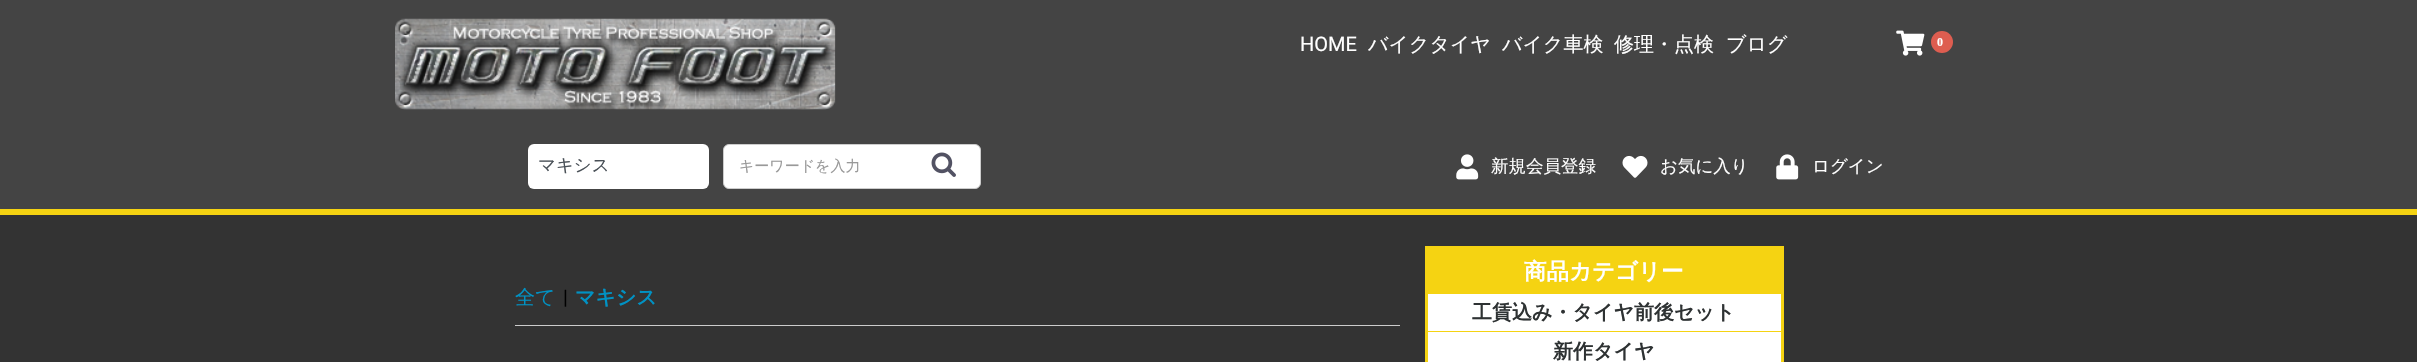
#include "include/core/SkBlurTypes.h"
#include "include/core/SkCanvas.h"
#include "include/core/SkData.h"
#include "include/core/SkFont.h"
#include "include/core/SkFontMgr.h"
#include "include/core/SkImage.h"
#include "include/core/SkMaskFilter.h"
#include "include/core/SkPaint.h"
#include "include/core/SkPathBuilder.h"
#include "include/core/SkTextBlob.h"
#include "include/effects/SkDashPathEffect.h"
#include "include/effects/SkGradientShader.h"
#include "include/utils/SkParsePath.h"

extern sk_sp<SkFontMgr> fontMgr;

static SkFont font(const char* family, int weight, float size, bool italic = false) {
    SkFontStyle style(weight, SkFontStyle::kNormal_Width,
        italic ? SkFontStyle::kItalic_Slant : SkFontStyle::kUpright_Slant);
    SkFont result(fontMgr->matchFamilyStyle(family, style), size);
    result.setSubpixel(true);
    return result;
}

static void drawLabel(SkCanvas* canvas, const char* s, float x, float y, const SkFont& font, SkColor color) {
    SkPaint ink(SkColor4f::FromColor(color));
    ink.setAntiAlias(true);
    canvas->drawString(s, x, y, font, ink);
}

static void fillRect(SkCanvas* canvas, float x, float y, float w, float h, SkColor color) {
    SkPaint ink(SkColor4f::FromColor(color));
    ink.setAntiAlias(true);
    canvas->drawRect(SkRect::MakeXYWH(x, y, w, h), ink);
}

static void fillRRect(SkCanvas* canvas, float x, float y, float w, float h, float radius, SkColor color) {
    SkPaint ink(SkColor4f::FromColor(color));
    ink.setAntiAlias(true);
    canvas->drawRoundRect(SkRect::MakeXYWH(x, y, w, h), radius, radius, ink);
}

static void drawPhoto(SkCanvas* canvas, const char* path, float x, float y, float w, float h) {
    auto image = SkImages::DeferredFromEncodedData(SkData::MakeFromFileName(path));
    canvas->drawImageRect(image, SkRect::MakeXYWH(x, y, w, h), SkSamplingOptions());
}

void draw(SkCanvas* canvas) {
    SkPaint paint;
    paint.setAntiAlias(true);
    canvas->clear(0xFF333333);
    fillRect(canvas, 0, 0, 2417, 209, 0xFF444444);
    fillRect(canvas, 0, 209, 2417, 6, 0xFFF5D312);
    drawPhoto(canvas, "assets/img1.png", 395, 18, 441, 92);
    SkFont font1 = font("Roboto", 400, 20);
    drawLabel(canvas, "HOME", 1300, 51, font1, 0xFFFFFFFF);
    SkFont font2 = font("WenQuanYi Zen Hei", 500, 20);
    drawLabel(canvas, "バイクタイヤ", 1368, 51, font2, 0xFFFFFFFF);
    drawLabel(canvas, "バイク車検", 1502, 51, font2, 0xFFFFFFFF);
    drawLabel(canvas, "修理・点検", 1614, 51, font2, 0xFFFFFFFF);
    drawLabel(canvas, "ブログ", 1726, 51, font2, 0xFFFFFFFF);
    drawPhoto(canvas, "assets/img2.png", 1896, 30, 29, 26);
    paint.setColor(0xFFDE5D50);
    canvas->drawCircle(1942, 42, 11, paint);
    SkFont font3 = font("Liberation Serif", 700, 12);
    drawLabel(canvas, "0", 1937, 46, font3, 0xFFFFFFFF);
    fillRRect(canvas, 528, 144, 181, 45, 6, 0xFFFFFFFF);
    SkFont font4 = font("WenQuanYi Zen Hei", 500, 17.5f);
    drawLabel(canvas, "マキシス", 538, 171, font4, 0xFF495057);
    paint.setColor(0xFFFFFFFF);
    canvas->drawRoundRect(SkRect::MakeXYWH(723.5f, 144.5f, 257, 44), 5.5f, 5.5f, paint);
    paint.setStroke(true);
    paint.setStrokeWidth(1);
    paint.setColor(0xFFCCCCCC);
    canvas->drawRoundRect(SkRect::MakeXYWH(723.5f, 144.5f, 257, 44), 5.5f, 5.5f, paint);
    SkFont font5 = font("WenQuanYi Zen Hei", 500, 15);
    drawLabel(canvas, "キーワードを入力", 739, 171, font5, 0xFF999999);
    drawPhoto(canvas, "assets/img3.png", 931, 152, 25, 25);
    drawPhoto(canvas, "assets/img4.png", 1456, 154, 23, 26);
    drawLabel(canvas, "新規会員登録", 1491, 172, font4, 0xFFFFFFFF);
    drawPhoto(canvas, "assets/img5.png", 1622, 155, 26, 23);
    drawLabel(canvas, "お気に入り", 1660, 172, font4, 0xFFFFFFFF);
    drawPhoto(canvas, "assets/img6.png", 1776, 154, 23, 26);
    drawLabel(canvas, "ログイン", 1812, 172, font4, 0xFFFFFFFF);
    drawLabel(canvas, "全て", 515, 304, font2, 0xFF0092C4);
    drawLabel(canvas, "|", 563, 304, font1, 0xFF000000);
    SkFont font6 = font("WenQuanYi Zen Hei", 700, 20);
    drawLabel(canvas, "マキシス", 575, 304, font6, 0xFF0092C4);
    fillRect(canvas, 515, 325, 885, 1, 0xFFCCCCCC);
    paint.setStrokeWidth(3);
    paint.setColor(0xFFF5D312);
    canvas->drawRect(SkRect::MakeXYWH(1426.5f, 247.5f, 356, 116), paint);
    fillRect(canvas, 1428, 249, 353, 45, 0xFFF5D312);
    SkFont font7 = font("WenQuanYi Zen Hei", 700, 22.5f);
    drawLabel(canvas, "商品カテゴリー", 1524, 279, font7, 0xFFFFFFFF);
    fillRect(canvas, 1428, 294, 353, 68, 0xFFFFFFFF);
    fillRect(canvas, 1428, 331, 353, 1, 0xFFF5D312);
    drawLabel(canvas, "工賃込み・タイヤ前後セット", 1472, 319, font6, 0xFF2E3233);
    drawLabel(canvas, "新作タイヤ", 1553, 358, font6, 0xFF2E3233);
}
